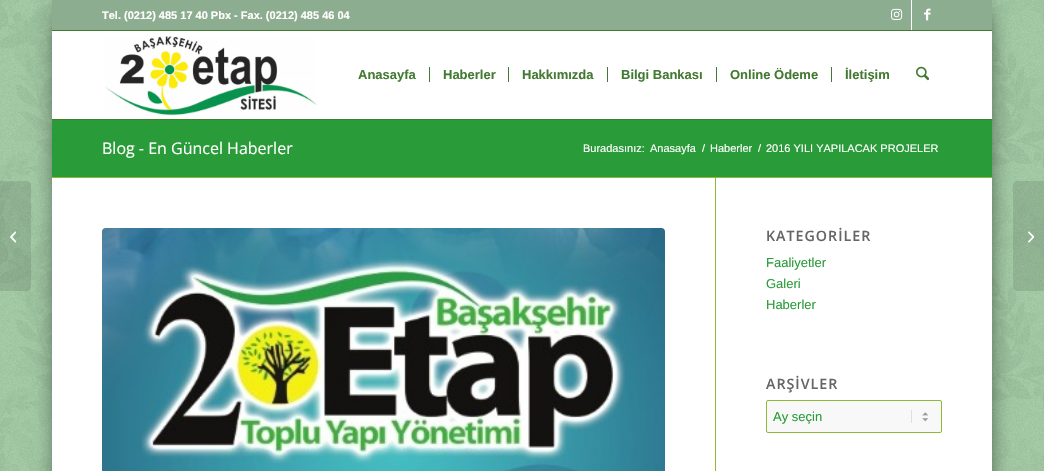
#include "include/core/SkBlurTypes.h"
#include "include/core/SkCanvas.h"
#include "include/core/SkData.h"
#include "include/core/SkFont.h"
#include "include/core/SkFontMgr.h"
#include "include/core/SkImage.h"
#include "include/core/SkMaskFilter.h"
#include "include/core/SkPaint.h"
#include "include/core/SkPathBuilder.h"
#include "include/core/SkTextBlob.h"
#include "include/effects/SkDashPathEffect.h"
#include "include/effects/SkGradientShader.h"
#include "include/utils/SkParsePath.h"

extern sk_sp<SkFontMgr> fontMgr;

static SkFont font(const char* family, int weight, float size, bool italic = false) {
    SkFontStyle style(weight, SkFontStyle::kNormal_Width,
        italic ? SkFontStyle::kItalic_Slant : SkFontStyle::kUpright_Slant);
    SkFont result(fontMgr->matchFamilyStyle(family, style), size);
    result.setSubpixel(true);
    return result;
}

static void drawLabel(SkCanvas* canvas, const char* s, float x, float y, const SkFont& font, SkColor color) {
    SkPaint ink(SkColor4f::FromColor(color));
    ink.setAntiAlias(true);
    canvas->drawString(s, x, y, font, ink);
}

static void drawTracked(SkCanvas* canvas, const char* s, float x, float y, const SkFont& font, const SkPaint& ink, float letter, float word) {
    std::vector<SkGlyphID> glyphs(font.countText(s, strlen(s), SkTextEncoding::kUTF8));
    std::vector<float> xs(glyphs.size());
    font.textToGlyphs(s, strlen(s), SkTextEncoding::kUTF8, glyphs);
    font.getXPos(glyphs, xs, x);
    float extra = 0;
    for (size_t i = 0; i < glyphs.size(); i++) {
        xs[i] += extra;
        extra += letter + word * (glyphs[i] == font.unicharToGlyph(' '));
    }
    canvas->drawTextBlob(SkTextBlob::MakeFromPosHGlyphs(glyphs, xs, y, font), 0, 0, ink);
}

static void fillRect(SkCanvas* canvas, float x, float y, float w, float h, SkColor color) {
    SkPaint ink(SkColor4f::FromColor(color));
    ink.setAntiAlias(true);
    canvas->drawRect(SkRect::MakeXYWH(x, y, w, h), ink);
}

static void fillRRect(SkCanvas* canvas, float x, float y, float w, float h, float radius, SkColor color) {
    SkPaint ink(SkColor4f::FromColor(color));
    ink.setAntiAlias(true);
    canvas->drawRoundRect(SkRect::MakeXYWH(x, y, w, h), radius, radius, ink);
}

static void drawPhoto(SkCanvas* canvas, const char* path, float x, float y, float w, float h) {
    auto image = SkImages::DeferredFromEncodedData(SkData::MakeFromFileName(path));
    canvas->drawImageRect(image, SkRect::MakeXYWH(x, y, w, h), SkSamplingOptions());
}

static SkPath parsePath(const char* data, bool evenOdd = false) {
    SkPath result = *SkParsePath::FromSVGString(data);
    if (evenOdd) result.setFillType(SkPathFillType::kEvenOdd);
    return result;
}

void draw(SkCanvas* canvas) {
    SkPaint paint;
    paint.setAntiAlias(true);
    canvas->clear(0xFFAED9B0);
    drawPhoto(canvas, "assets/img1.png", 0, 0, 1044, 471);
    paint.setColor(0xFF000000);
    paint.setMaskFilter(SkMaskFilter::MakeBlur(kNormal_SkBlurStyle, 12.5f));
    canvas->drawRect(SkRect::MakeXYWH(63, 11, 920, 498), paint);
    paint.setMaskFilter(nullptr);
    fillRect(canvas, 52, 0, 940, 30, 0xFF8CAD8F);
    fillRect(canvas, 52, 30, 940, 1, 0xFF427A32);
    SkFont font1 = font("Liberation Sans", 700, 11);
    drawLabel(canvas, "Tel. (0212) 485 17 40 Pbx - Fax. (0212) 485 46 04", 102, 19, font1, 0xFFFFFFFF);
    fillRect(canvas, 911, 0, 1, 30, 0xFFFFFFFF);
    drawPhoto(canvas, "assets/img2.png", 891, 8, 12, 12);
    drawPhoto(canvas, "assets/img3.png", 924, 8, 7, 13);
    fillRect(canvas, 52, 31, 940, 440, 0xFFFFFFFF);
    fillRect(canvas, 52, 119, 940, 1, 0xFF427A32);
    drawPhoto(canvas, "assets/img4.png", 105, 36, 212, 80);
    SkFont font2 = font("Liberation Sans", 700, 13);
    drawLabel(canvas, "Anasayfa", 358, 79, font2, 0xFF427A32);
    drawLabel(canvas, "Haberler", 443, 79, font2, 0xFF427A32);
    fillRect(canvas, 429, 67, 1, 15, 0xFF427A32);
    drawLabel(canvas, "Hakkımızda", 522, 79, font2, 0xFF427A32);
    fillRect(canvas, 508, 67, 1, 15, 0xFF427A32);
    drawLabel(canvas, "Bilgi Bankası", 621, 79, font2, 0xFF427A32);
    fillRect(canvas, 607, 67, 1, 15, 0xFF427A32);
    drawLabel(canvas, "Online Ödeme", 730, 79, font2, 0xFF427A32);
    fillRect(canvas, 716, 67, 1, 15, 0xFF427A32);
    drawLabel(canvas, "İletişim", 845, 79, font2, 0xFF427A32);
    fillRect(canvas, 831, 67, 1, 15, 0xFF427A32);
    drawPhoto(canvas, "assets/img5.png", 916, 66, 13, 15);
    paint.setColor(0x1A000000);
    canvas->drawPath(parsePath("M0 181H27C29 181 31 183 31 185V287C31 289 29 291 27 291H0Z"), paint);
    drawPhoto(canvas, "assets/img6.png", 10, 231, 6, 12);
    fillRect(canvas, 52, 120, 940, 57, 0xFF299B38);
    SkFont font3 = font("Open Sans", 400, 16);
    drawLabel(canvas, "Blog - En Güncel Haberler", 102, 154, font3, 0xFFFFFFFF);
    SkFont font4 = font("Liberation Sans", 400, 11);
    drawLabel(canvas, "Buradasınız:", 583, 152, font4, 0xFFFFFFFF);
    drawLabel(canvas, "Anasayfa", 650, 152, font4, 0xFFFFFFFF);
    drawLabel(canvas, "/", 702, 152, font4, 0xFFFFFFFF);
    drawLabel(canvas, "Haberler", 710, 152, font4, 0xFFFFFFFF);
    drawLabel(canvas, "/", 758, 152, font4, 0xFFFFFFFF);
    drawLabel(canvas, "2016 YILI YAPILACAK PROJELER", 766, 152, font4, 0xFFFFFFFF);
    fillRect(canvas, 52, 177, 940, 1, 0xFF8BBA34);
    fillRect(canvas, 715, 178, 1, 293, 0xFF8BBA34);
    drawPhoto(canvas, "assets/img7.png", 102, 228, 563, 243);
    SkFont font5 = font("Open Sans", 600, 14.25f);
    paint.setColor(0xFF666666);
    drawTracked(canvas, "KATEGORİLER", 766, 241, font5, paint, 1, 0);
    SkFont font6 = font("Liberation Sans", 400, 13);
    drawLabel(canvas, "Faaliyetler", 766, 267, font6, 0xFF299B38);
    drawLabel(canvas, "Galeri", 766, 288, font6, 0xFF299B38);
    drawLabel(canvas, "Haberler", 766, 309, font6, 0xFF299B38);
    drawTracked(canvas, "ARŞİVLER", 766, 389, font5, paint, 1, 0);
    fillRRect(canvas, 766, 400, 176, 33, 2, 0xFFF8F8F8);
    drawPhoto(canvas, "assets/img8.png", 911, 410, 18, 13);
    paint.setStroke(true);
    paint.setStrokeWidth(1);
    paint.setColor(0xFF8BBA34);
    canvas->drawRoundRect(SkRect::MakeXYWH(766.5f, 400.5f, 175, 32), 1.5f, 1.5f, paint);
    drawLabel(canvas, "Ay seçin", 773, 421, font6, 0xFF299B38);
    paint.setStroke(false);
    paint.setColor(0x1A000000);
    canvas->drawPath(parsePath("M1017 181H1044V291H1017C1015 291 1013 289 1013 287V185C1013 183 1015 181 1017 181Z"), paint);
    drawPhoto(canvas, "assets/img9.png", 1028, 231, 6, 12);
}
